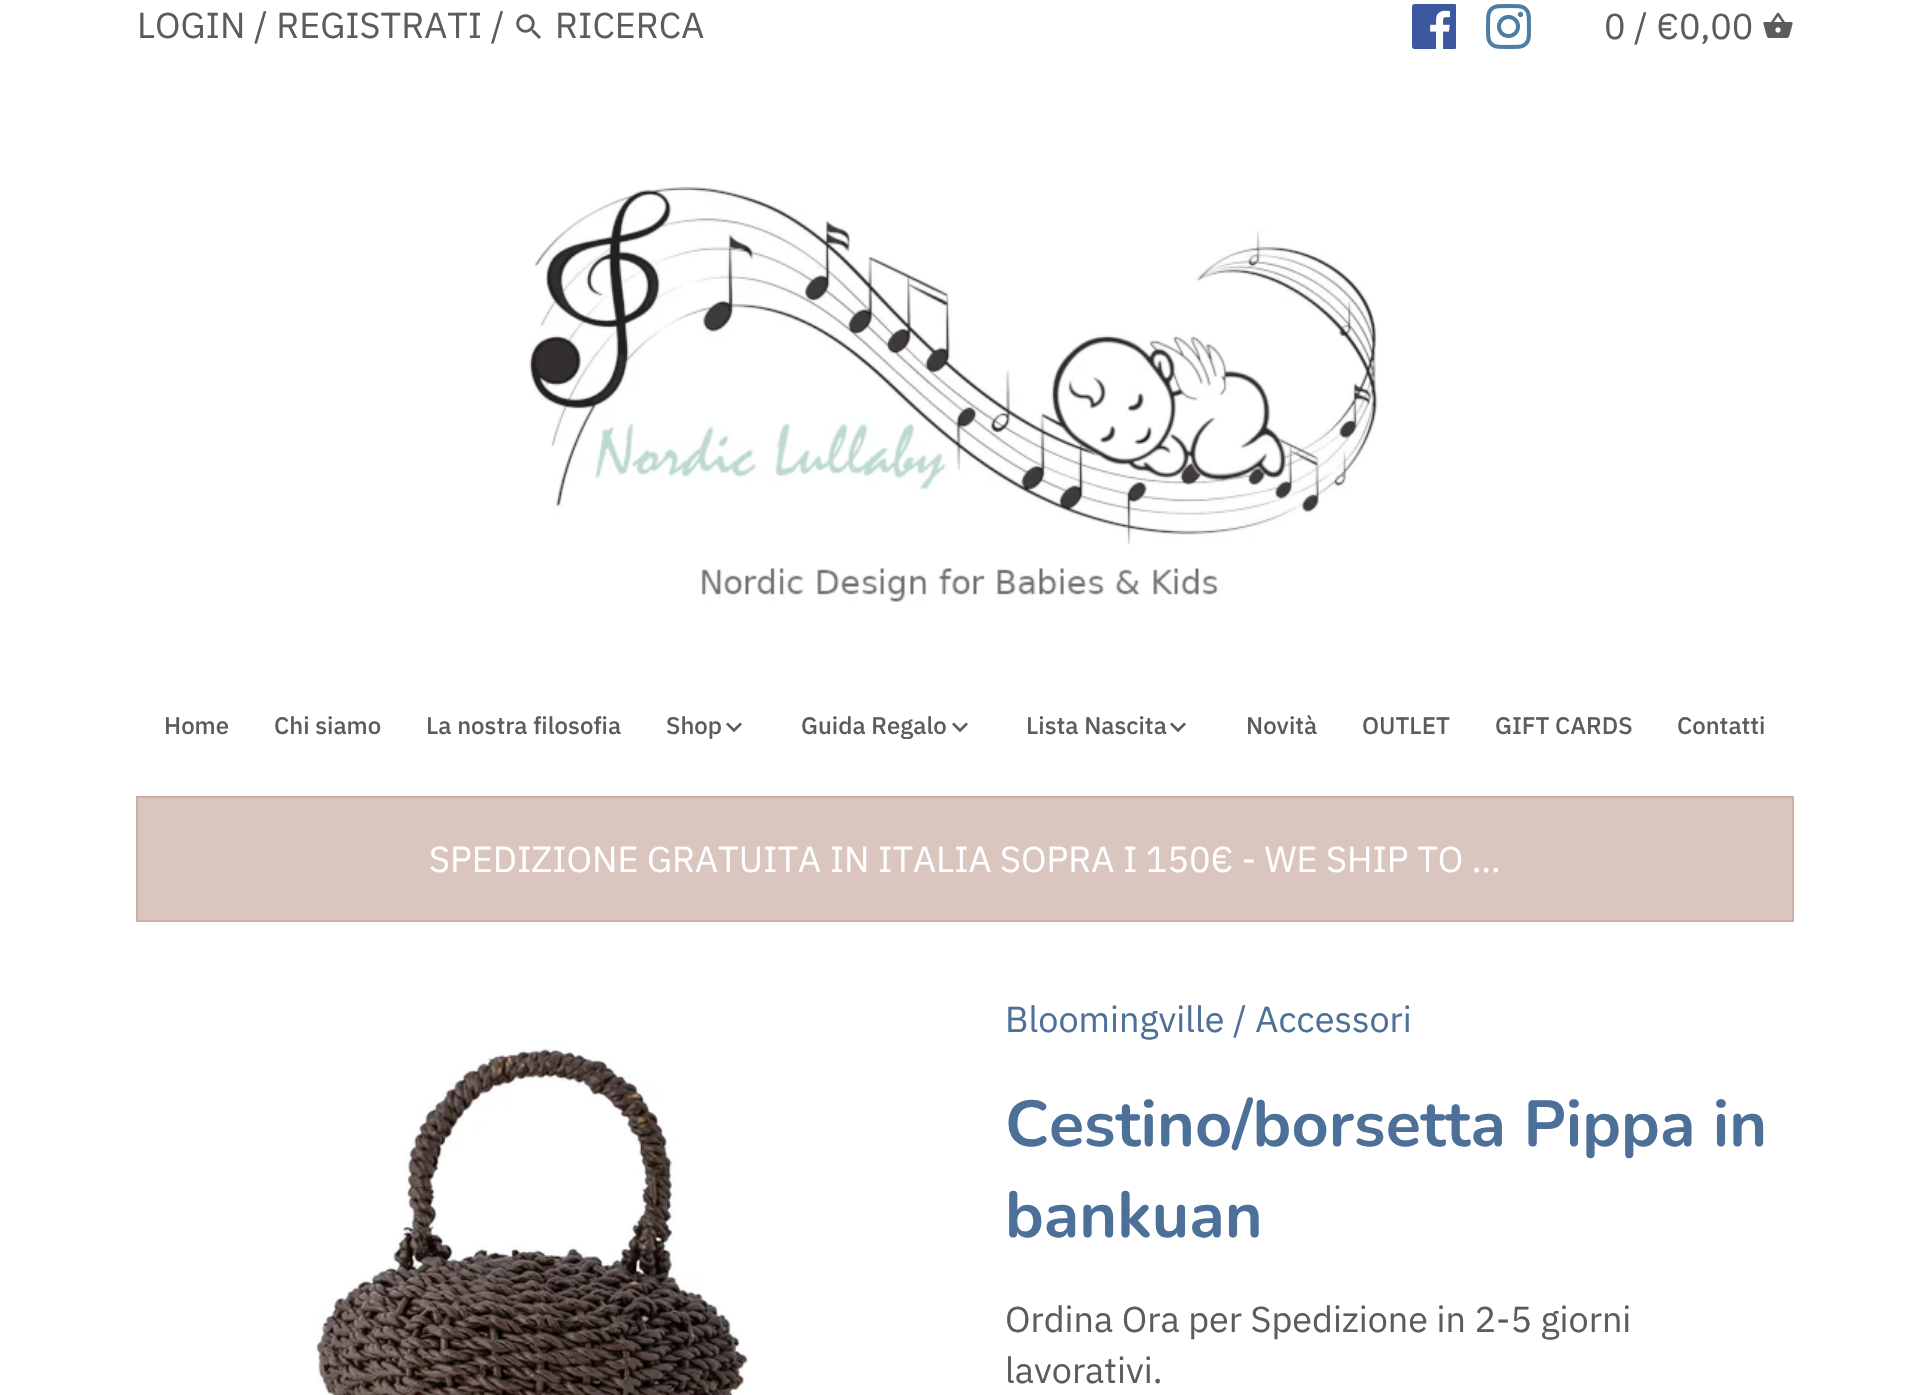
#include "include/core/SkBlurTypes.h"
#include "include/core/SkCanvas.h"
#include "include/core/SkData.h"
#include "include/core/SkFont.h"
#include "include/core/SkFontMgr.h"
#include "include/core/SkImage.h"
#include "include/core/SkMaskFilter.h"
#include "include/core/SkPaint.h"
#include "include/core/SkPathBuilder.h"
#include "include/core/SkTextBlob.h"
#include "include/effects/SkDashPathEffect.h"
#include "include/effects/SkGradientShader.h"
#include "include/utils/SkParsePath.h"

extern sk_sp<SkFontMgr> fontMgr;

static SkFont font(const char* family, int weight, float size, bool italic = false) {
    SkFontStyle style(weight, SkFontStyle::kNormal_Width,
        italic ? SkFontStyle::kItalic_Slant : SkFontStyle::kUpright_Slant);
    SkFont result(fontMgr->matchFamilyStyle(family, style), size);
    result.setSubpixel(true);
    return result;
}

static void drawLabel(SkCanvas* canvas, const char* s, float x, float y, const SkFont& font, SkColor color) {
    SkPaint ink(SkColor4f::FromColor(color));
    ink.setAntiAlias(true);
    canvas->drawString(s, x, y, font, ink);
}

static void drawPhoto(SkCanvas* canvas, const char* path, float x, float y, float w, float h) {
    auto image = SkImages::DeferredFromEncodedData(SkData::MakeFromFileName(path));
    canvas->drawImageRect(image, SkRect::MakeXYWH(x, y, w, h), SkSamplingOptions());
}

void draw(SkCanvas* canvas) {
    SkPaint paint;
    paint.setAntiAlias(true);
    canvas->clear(0xFFFFFFFF);
    SkFont font1 = font("IBM Plex Sans", 400, 36);
    drawLabel(canvas, "LOGIN / REGISTRATI /", 137, 38, font1, 0xFF5C5C5F);
    drawPhoto(canvas, "assets/img1.png", 516, 14, 25, 25);
    drawLabel(canvas, "RICERCA", 555, 38, font1, 0xFF5C5C5F);
    drawPhoto(canvas, "assets/img2.png", 1412, 4, 44, 45);
    drawPhoto(canvas, "assets/img3.png", 1486, 4, 45, 45);
    drawLabel(canvas, "0 / €0,00", 1604, 39, font1, 0xFF5C5C5F);
    drawPhoto(canvas, "assets/img4.png", 1763, 12, 30, 26);
    drawPhoto(canvas, "assets/img5.png", 529, 186, 849, 417);
    SkFont font2 = font("IBM Plex Sans", 500, 24);
    drawLabel(canvas, "Home", 164, 734, font2, 0xFF5C5C5F);
    drawLabel(canvas, "Chi siamo", 274, 734, font2, 0xFF5C5C5F);
    drawLabel(canvas, "La nostra filosofia", 426, 734, font2, 0xFF5C5C5F);
    drawLabel(canvas, "Shop", 666, 734, font2, 0xFF5C5C5F);
    drawPhoto(canvas, "assets/img6.png", 726, 722, 16, 11);
    drawLabel(canvas, "Guida Regalo", 801, 734, font2, 0xFF5C5C5F);
    drawPhoto(canvas, "assets/img6.png", 952, 722, 16, 11);
    drawLabel(canvas, "Lista Nascita", 1026, 734, font2, 0xFF5C5C5F);
    drawPhoto(canvas, "assets/img6.png", 1170, 722, 16, 11);
    drawLabel(canvas, "Novità", 1246, 734, font2, 0xFF5C5C5F);
    drawLabel(canvas, "OUTLET", 1362, 734, font2, 0xFF5C5C5F);
    drawLabel(canvas, "GIFT CARDS", 1495, 734, font2, 0xFF5C5C5F);
    drawLabel(canvas, "Contatti", 1677, 734, font2, 0xFF5C5C5F);
    paint.setColor(0xFFDAC6BF);
    canvas->drawRect(SkRect::MakeXYWH(137, 797, 1656, 124), paint);
    paint.setStroke(true);
    paint.setStrokeWidth(2);
    paint.setColor(0xFFCBAFA5);
    canvas->drawRect(SkRect::MakeXYWH(137, 797, 1656, 124), paint);
    drawLabel(canvas, "SPEDIZIONE GRATUITA IN ITALIA SOPRA I 150€ - WE SHIP TO …", 429, 872, font1, 0xFFFFFFFF);
    drawPhoto(canvas, "assets/img7.png", 315, 1047, 435, 348);
    drawLabel(canvas, "Bloomingville / Accessori", 1005, 1032, font1, 0xFF4D7099);
    SkFont font3 = font("Nunito", 700, 64.75f);
    drawLabel(canvas, "Cestino/borsetta Pippa in", 1005, 1146, font3, 0xFF4D7099);
    drawLabel(canvas, "bankuan", 1005, 1237, font3, 0xFF4D7099);
    drawLabel(canvas, "Ordina Ora per Spedizione in 2-5 giorni", 1005, 1332, font1, 0xFF5C5C5F);
    drawLabel(canvas, "lavorativi.", 1005, 1383, font1, 0xFF5C5C5F);
}
